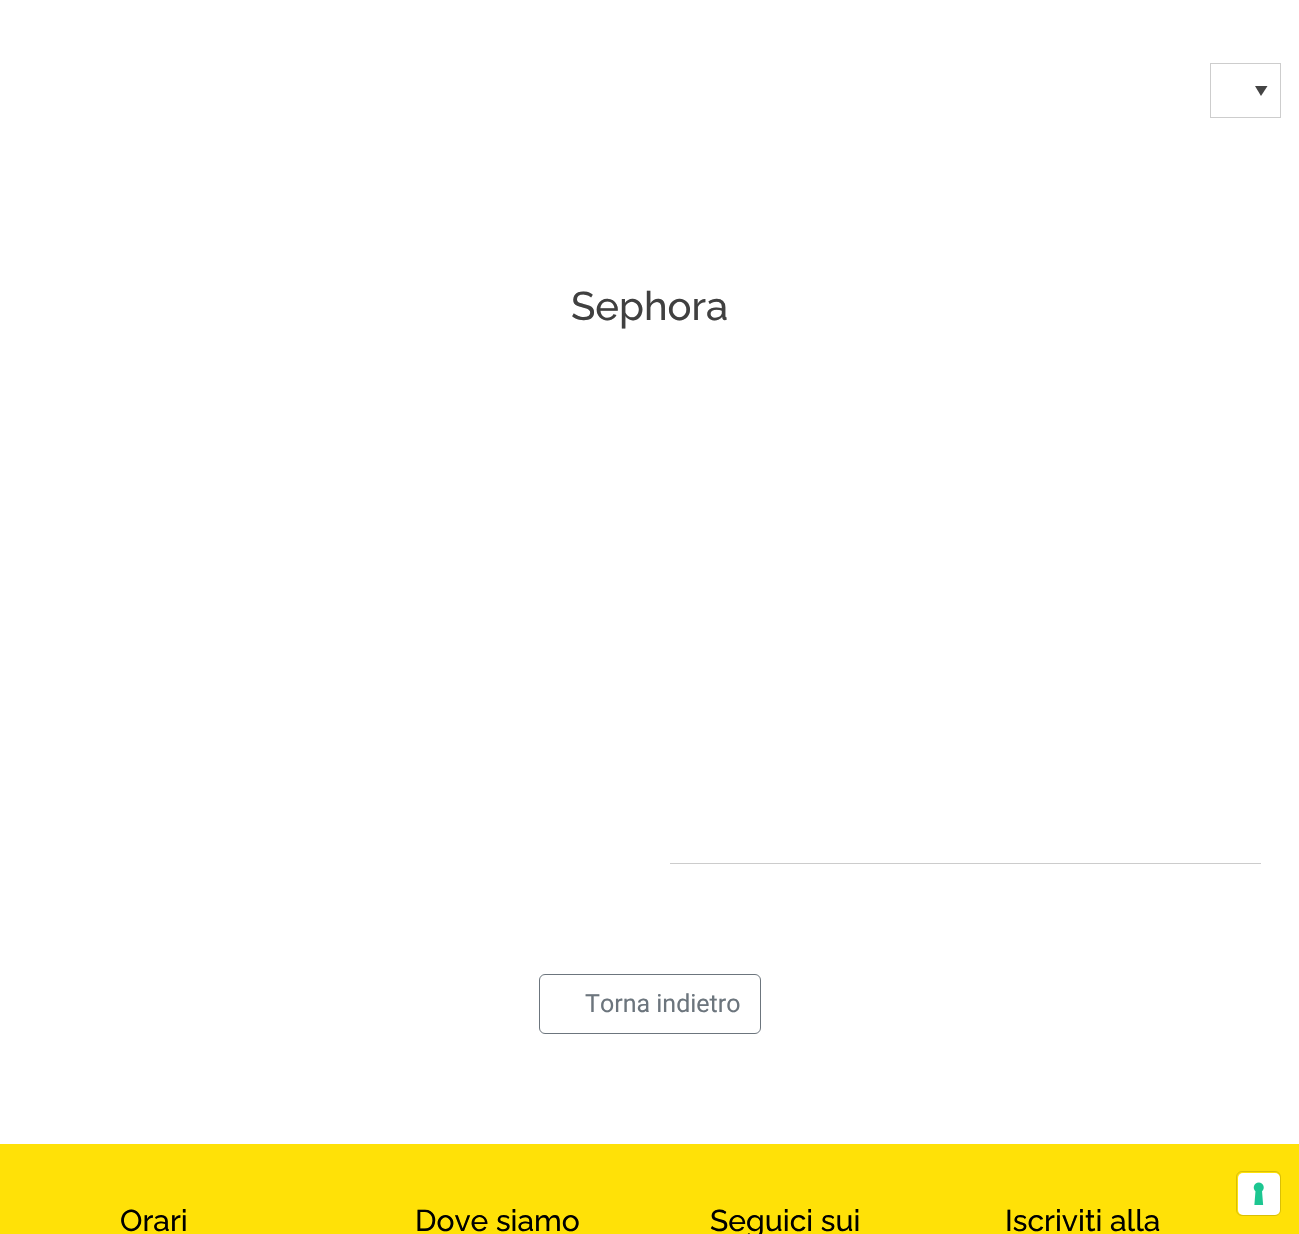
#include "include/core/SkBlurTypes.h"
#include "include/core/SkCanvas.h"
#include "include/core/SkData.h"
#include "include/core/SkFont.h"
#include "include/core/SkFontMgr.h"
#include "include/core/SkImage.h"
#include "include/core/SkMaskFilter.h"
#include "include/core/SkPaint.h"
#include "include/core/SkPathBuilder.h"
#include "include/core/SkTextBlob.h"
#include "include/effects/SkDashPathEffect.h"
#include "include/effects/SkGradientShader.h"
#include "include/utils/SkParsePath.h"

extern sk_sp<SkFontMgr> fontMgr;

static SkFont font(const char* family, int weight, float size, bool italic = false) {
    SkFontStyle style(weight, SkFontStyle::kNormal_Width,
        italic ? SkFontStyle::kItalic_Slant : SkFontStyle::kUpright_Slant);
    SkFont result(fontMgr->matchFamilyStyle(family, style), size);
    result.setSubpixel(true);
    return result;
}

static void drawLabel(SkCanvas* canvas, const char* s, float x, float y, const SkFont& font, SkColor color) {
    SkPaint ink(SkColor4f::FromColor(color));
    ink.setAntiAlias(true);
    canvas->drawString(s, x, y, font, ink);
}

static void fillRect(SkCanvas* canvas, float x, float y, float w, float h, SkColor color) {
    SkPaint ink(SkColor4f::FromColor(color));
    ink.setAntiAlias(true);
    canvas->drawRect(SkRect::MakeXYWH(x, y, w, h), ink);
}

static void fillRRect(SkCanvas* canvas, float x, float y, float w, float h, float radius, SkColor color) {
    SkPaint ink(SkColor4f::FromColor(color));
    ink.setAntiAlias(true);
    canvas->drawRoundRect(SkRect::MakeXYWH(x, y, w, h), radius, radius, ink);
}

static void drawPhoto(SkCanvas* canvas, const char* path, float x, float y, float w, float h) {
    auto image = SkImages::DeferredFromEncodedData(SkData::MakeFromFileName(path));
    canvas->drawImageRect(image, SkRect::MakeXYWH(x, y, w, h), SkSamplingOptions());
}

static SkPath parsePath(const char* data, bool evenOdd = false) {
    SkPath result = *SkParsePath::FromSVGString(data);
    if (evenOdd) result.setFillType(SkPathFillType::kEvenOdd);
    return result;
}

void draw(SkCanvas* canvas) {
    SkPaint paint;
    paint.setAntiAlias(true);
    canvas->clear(0xFFFFFFFF);
    paint.setStroke(true);
    paint.setStrokeWidth(1);
    paint.setColor(0xFFCDCDCD);
    canvas->drawRect(SkRect::MakeXYWH(1210.5f, 63.5f, 70, 54), paint);
    paint.setStroke(false);
    paint.setColor(0xFF444444);
    canvas->drawPath(parsePath("M1255 86H1267.5L1261 96Z"), paint);
    SkFont font1 = font("Raleway", 500, 40);
    drawLabel(canvas, "Sephora", 571, 320, font1, 0xFF404040);
    fillRect(canvas, 670, 863, 591, 1, 0xFFCCCCCC);
    paint.setStroke(true);
    paint.setColor(0xFF6C757D);
    canvas->drawRoundRect(SkRect::MakeXYWH(539.5f, 974.5f, 221, 59), 5.5f, 5.5f, paint);
    SkFont font2 = font("Roboto", 400, 25);
    drawLabel(canvas, "Torna indietro", 585, 1012, font2, 0xFF6C757D);
    fillRect(canvas, 0, 1144, 1299, 90, 0xFFFFE107);
    SkFont font3 = font("Raleway", 500, 30);
    drawLabel(canvas, "Orari", 120, 1231, font3, 0xFF000000);
    drawLabel(canvas, "Dove siamo", 415, 1231, font3, 0xFF000000);
    drawLabel(canvas, "Seguici sui", 710, 1231, font3, 0xFF000000);
    drawLabel(canvas, "Iscriviti alla", 1005, 1231, font3, 0xFF000000);
    paint.setColor(0xFFD9BF06);
    canvas->drawRoundRect(SkRect::MakeXYWH(1236.5f, 1171.5f, 44, 44), 5.5f, 5.5f, paint);
    fillRRect(canvas, 1238, 1173, 42, 42, 5, 0xFFFFFFFF);
    drawPhoto(canvas, "assets/img1.png", 1253, 1182, 11, 23);
}
